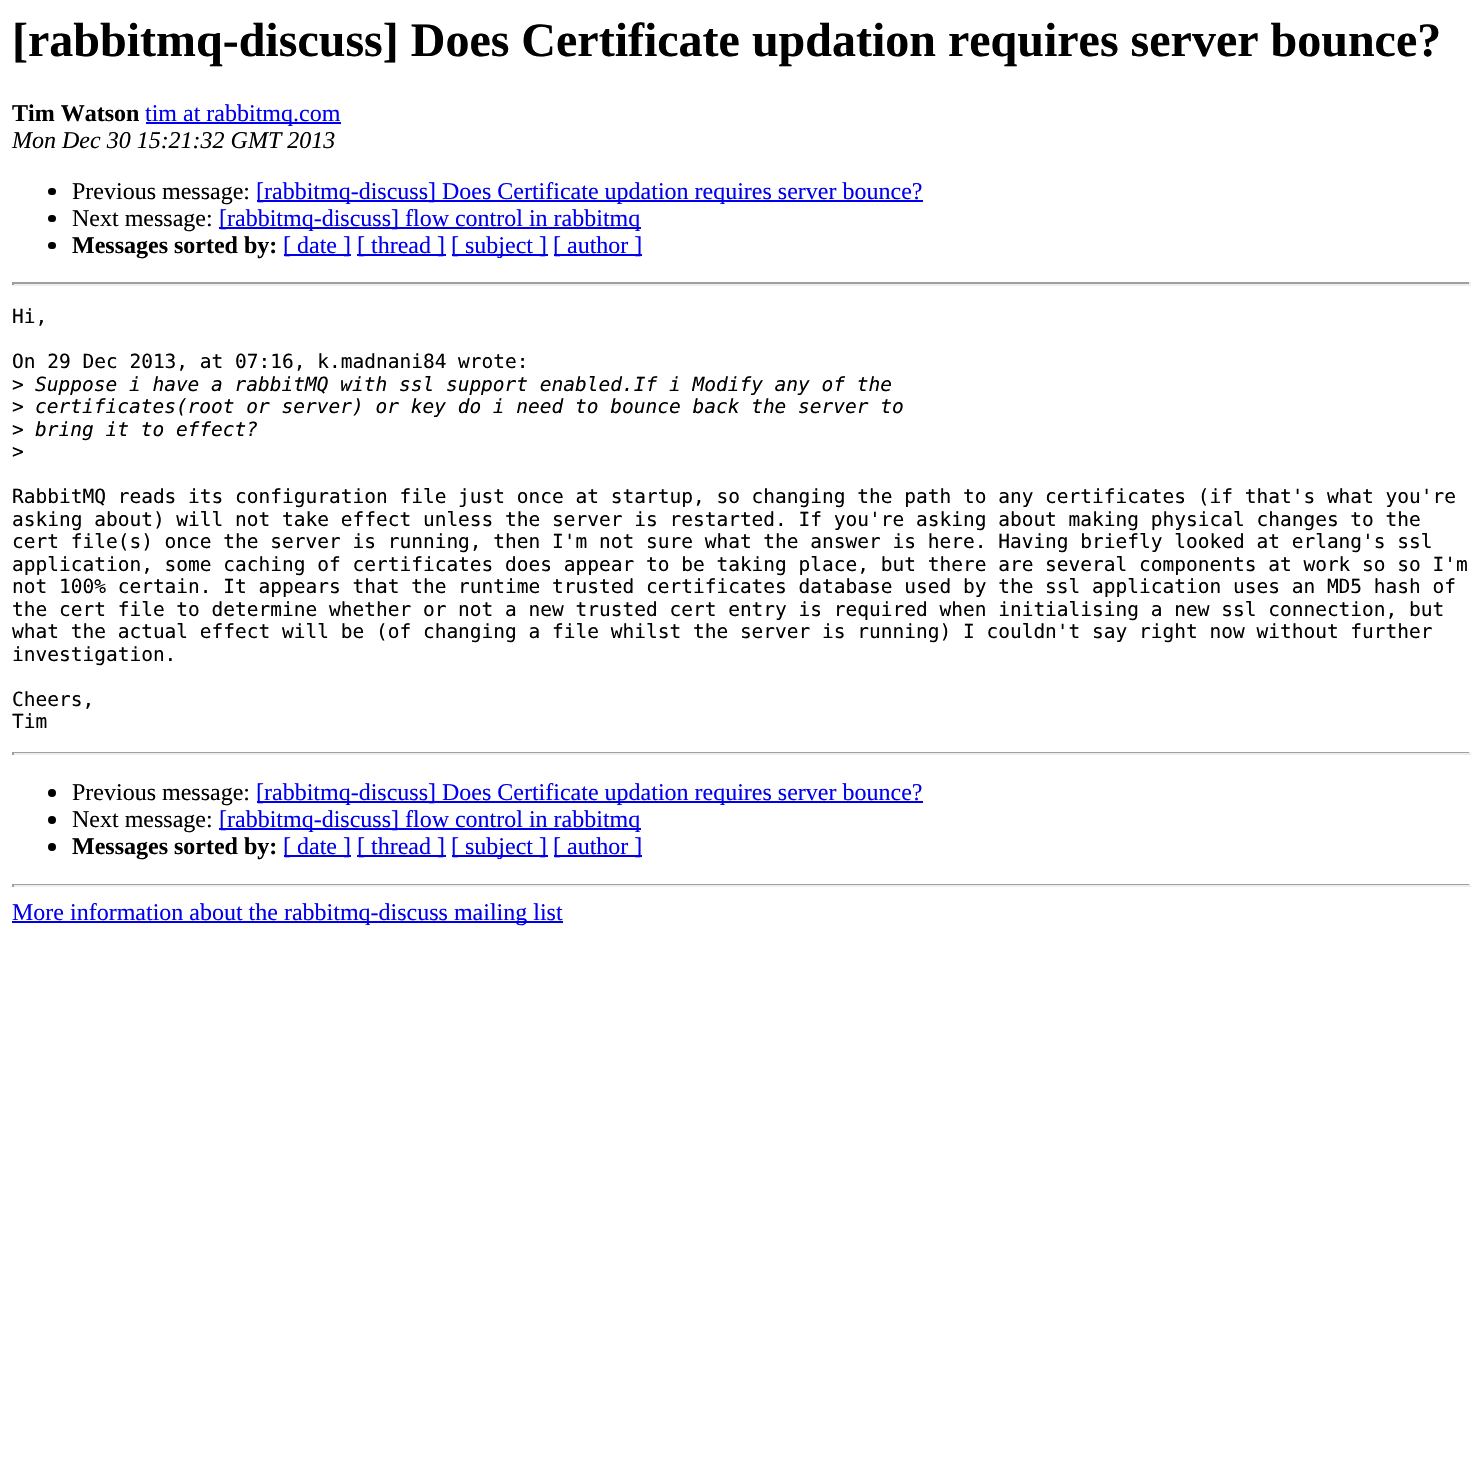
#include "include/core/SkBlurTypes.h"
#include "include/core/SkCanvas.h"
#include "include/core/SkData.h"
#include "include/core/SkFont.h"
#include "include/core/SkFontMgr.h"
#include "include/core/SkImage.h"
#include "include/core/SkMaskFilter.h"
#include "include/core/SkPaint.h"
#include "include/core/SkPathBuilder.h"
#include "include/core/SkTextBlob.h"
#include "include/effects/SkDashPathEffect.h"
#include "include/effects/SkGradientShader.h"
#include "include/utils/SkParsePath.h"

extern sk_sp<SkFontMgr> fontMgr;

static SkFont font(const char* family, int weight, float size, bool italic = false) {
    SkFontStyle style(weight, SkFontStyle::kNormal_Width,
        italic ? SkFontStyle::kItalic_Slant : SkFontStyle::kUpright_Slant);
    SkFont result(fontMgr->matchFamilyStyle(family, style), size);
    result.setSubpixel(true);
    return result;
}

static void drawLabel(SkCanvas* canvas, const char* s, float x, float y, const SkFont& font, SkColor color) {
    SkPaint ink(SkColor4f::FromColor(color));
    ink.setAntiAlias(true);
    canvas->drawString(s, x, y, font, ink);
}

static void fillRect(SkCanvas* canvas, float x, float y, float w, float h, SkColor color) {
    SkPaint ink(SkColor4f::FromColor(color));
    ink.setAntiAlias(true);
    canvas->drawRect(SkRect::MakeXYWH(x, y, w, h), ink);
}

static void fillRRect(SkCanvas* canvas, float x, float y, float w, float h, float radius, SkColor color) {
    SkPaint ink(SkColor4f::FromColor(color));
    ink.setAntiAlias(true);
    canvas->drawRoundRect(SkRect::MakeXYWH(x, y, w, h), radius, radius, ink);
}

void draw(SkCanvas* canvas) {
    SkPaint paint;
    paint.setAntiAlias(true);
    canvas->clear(0xFFFFFFFF);
    SkFont font1 = font("Liberation Serif", 700, 48);
    drawLabel(canvas, "[rabbitmq-discuss] Does Certificate updation requires server bounce?", 12, 56, font1, 0xFF000000);
    SkFont font2 = font("Liberation Serif", 700, 24);
    drawLabel(canvas, "Tim Watson", 12, 121, font2, 0xFF000000);
    fillRect(canvas, 146, 122, 195, 2, 0xFF0000EE);
    SkFont font3 = font("Liberation Serif", 400, 24);
    drawLabel(canvas, "tim at rabbitmq.com", 145, 121, font3, 0xFF0000EE);
    SkFont font4 = font("Liberation Serif", 400, 24, true);
    drawLabel(canvas, "Mon Dec 30 15:21:32 GMT 2013", 12, 148, font4, 0xFF000000);
    fillRRect(canvas, 48, 188, 8, 7, 3.5f, 0xFF000000);
    drawLabel(canvas, "Previous message:", 72, 199, font3, 0xFF000000);
    fillRect(canvas, 257, 200, 666, 2, 0xFF0000EE);
    drawLabel(canvas, "[rabbitmq-discuss] Does Certificate updation requires server bounce?", 256, 199, font3, 0xFF0000EE);
    fillRRect(canvas, 48, 215, 8, 7, 3.5f, 0xFF000000);
    drawLabel(canvas, "Next message:", 72, 226, font3, 0xFF000000);
    fillRect(canvas, 219, 227, 422, 2, 0xFF0000EE);
    drawLabel(canvas, "[rabbitmq-discuss] flow control in rabbitmq", 219, 226, font3, 0xFF0000EE);
    fillRRect(canvas, 48, 242, 8, 7, 3.5f, 0xFF000000);
    drawLabel(canvas, "Messages sorted by:", 72, 253, font2, 0xFF000000);
    fillRect(canvas, 284, 254, 67, 2, 0xFF0000EE);
    drawLabel(canvas, "[ date ]", 283, 253, font3, 0xFF0000EE);
    fillRect(canvas, 357, 254, 89, 2, 0xFF0000EE);
    drawLabel(canvas, "[ thread ]", 357, 253, font3, 0xFF0000EE);
    fillRect(canvas, 452, 254, 96, 2, 0xFF0000EE);
    drawLabel(canvas, "[ subject ]", 451, 253, font3, 0xFF0000EE);
    fillRect(canvas, 554, 254, 88, 2, 0xFF0000EE);
    drawLabel(canvas, "[ author ]", 553, 253, font3, 0xFF0000EE);
    fillRect(canvas, 12, 282, 1458, 2, 0xFF9F9F9F);
    fillRect(canvas, 1469, 282, 2, 3, 0xFFEEEEEE);
    fillRect(canvas, 12, 284, 1458, 2, 0xFFEEEEEE);
    fillRect(canvas, 12, 282, 2, 3, 0xFF9F9F9F);
    SkFont font5 = font("DejaVu Sans Mono", 400, 19.5f);
    drawLabel(canvas, "Hi,", 12, 323, font5, 0xFF000000);
    drawLabel(canvas, "On 29 Dec 2013, at 07:16, k.madnani84 wrote:", 12, 368, font5, 0xFF000000);
    drawLabel(canvas, ">", 12, 391, font5, 0xFF000000);
    SkFont font6 = font("DejaVu Sans Mono", 400, 19.5f, true);
    drawLabel(canvas, "Suppose i have a rabbitMQ with ssl support enabled.If i Modify any of the", 35, 391, font6, 0xFF000000);
    drawLabel(canvas, ">", 12, 413, font5, 0xFF000000);
    drawLabel(canvas, "certificates(root or server) or key do i need to bounce back the server to", 35, 413, font6, 0xFF000000);
    drawLabel(canvas, ">", 12, 436, font5, 0xFF000000);
    drawLabel(canvas, "bring it to effect?", 35, 436, font6, 0xFF000000);
    drawLabel(canvas, ">", 12, 458, font5, 0xFF000000);
    drawLabel(canvas, "RabbitMQ reads its configuration file just once at startup, so changing the path to any certificates (if that's what you're", 12, 503, font5, 0xFF000000);
    drawLabel(canvas, "asking about) will not take effect unless the server is restarted. If you're asking about making physical changes to the", 12, 526, font5, 0xFF000000);
    drawLabel(canvas, "cert file(s) once the server is running, then I'm not sure what the answer is here. Having briefly looked at erlang's ssl", 12, 548, font5, 0xFF000000);
    drawLabel(canvas, "application, some caching of certificates does appear to be taking place, but there are several components at work so so I'm", 12, 571, font5, 0xFF000000);
    drawLabel(canvas, "not 100% certain. It appears that the runtime trusted certificates database used by the ssl application uses an MD5 hash of", 12, 593, font5, 0xFF000000);
    drawLabel(canvas, "the cert file to determine whether or not a new trusted cert entry is required when initialising a new ssl connection, but", 12, 616, font5, 0xFF000000);
    drawLabel(canvas, "what the actual effect will be (of changing a file whilst the server is running) I couldn't say right now without further", 12, 638, font5, 0xFF000000);
    drawLabel(canvas, "investigation.", 12, 661, font5, 0xFF000000);
    drawLabel(canvas, "Cheers,", 12, 706, font5, 0xFF000000);
    drawLabel(canvas, "Tim", 12, 728, font5, 0xFF000000);
    fillRect(canvas, 12, 752, 1458, 1, 0xFF9F9F9F);
    fillRect(canvas, 1469, 752, 2, 3, 0xFFEEEEEE);
    fillRect(canvas, 12, 753, 1458, 2, 0xFFEEEEEE);
    fillRect(canvas, 12, 752, 2, 3, 0xFF9F9F9F);
    paint.setColor(0xFF000000);
    canvas->drawCircle(52, 793, 4, paint);
    drawLabel(canvas, "Previous message:", 72, 800, font3, 0xFF000000);
    fillRect(canvas, 257, 801, 666, 2, 0xFF0000EE);
    drawLabel(canvas, "[rabbitmq-discuss] Does Certificate updation requires server bounce?", 256, 800, font3, 0xFF0000EE);
    canvas->drawCircle(52, 820, 4, paint);
    drawLabel(canvas, "Next message:", 72, 827, font3, 0xFF000000);
    fillRect(canvas, 219, 828, 422, 2, 0xFF0000EE);
    drawLabel(canvas, "[rabbitmq-discuss] flow control in rabbitmq", 219, 827, font3, 0xFF0000EE);
    canvas->drawCircle(52, 847, 4, paint);
    drawLabel(canvas, "Messages sorted by:", 72, 854, font2, 0xFF000000);
    fillRect(canvas, 284, 855, 67, 2, 0xFF0000EE);
    drawLabel(canvas, "[ date ]", 283, 854, font3, 0xFF0000EE);
    fillRect(canvas, 357, 855, 89, 2, 0xFF0000EE);
    drawLabel(canvas, "[ thread ]", 357, 854, font3, 0xFF0000EE);
    fillRect(canvas, 452, 855, 96, 2, 0xFF0000EE);
    drawLabel(canvas, "[ subject ]", 451, 854, font3, 0xFF0000EE);
    fillRect(canvas, 554, 855, 88, 2, 0xFF0000EE);
    drawLabel(canvas, "[ author ]", 553, 854, font3, 0xFF0000EE);
    fillRect(canvas, 12, 884, 1458, 1, 0xFF9F9F9F);
    fillRect(canvas, 1469, 884, 2, 3, 0xFFEEEEEE);
    fillRect(canvas, 12, 885, 1458, 2, 0xFFEEEEEE);
    fillRect(canvas, 12, 884, 2, 3, 0xFF9F9F9F);
    fillRect(canvas, 12, 921, 551, 2, 0xFF0000EE);
    drawLabel(canvas, "More information about the rabbitmq-discuss mailing list", 12, 920, font3, 0xFF0000EE);
}
